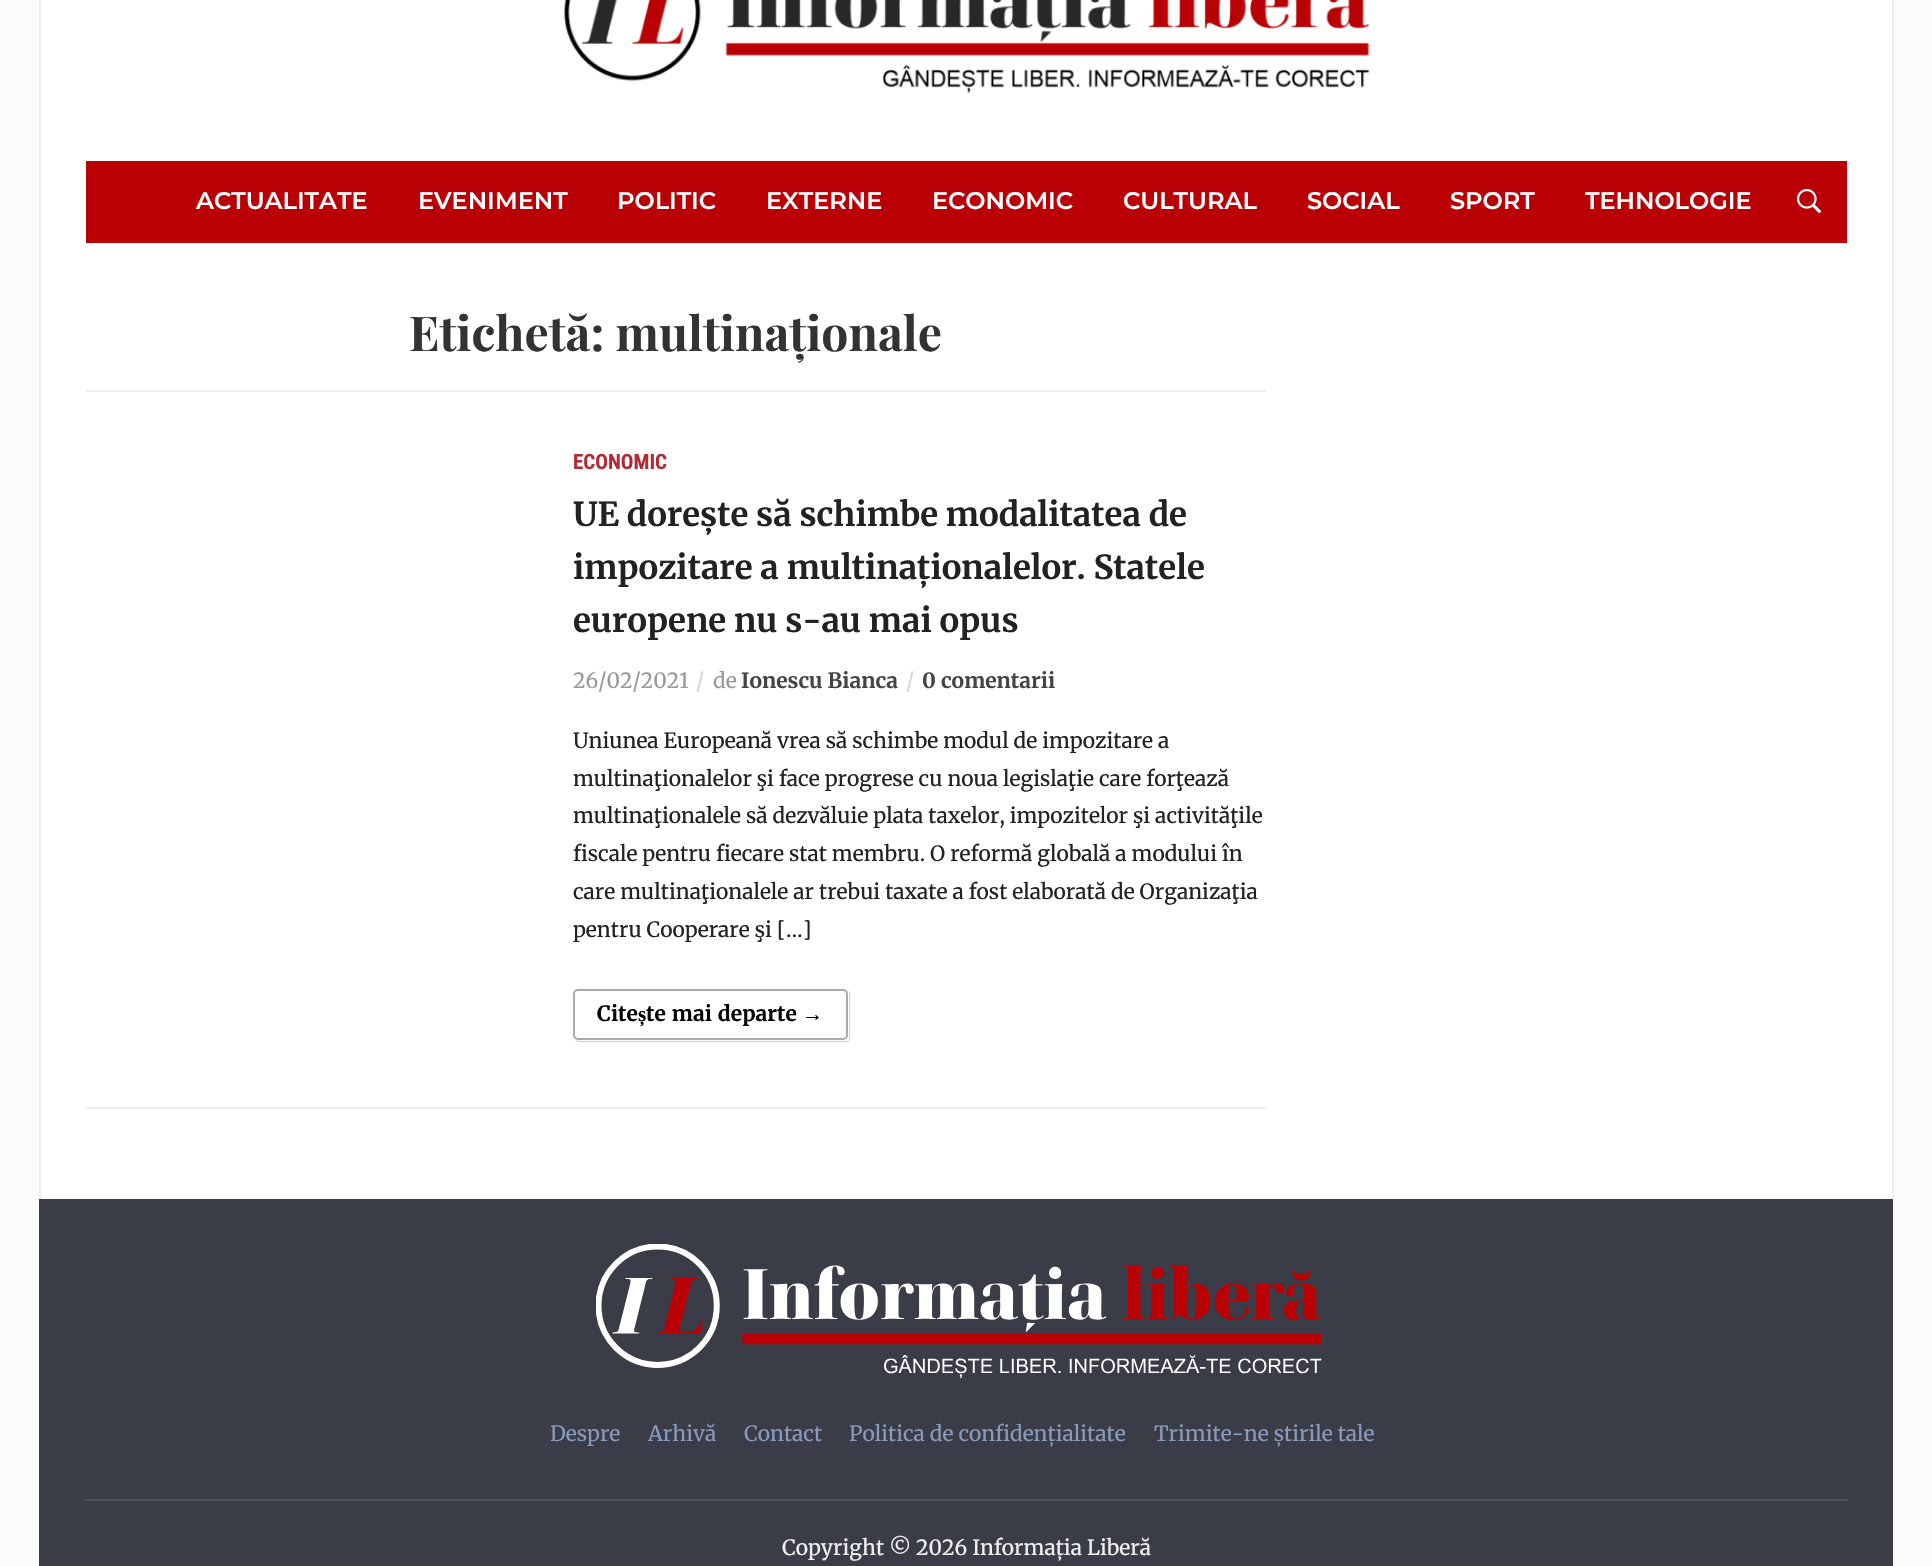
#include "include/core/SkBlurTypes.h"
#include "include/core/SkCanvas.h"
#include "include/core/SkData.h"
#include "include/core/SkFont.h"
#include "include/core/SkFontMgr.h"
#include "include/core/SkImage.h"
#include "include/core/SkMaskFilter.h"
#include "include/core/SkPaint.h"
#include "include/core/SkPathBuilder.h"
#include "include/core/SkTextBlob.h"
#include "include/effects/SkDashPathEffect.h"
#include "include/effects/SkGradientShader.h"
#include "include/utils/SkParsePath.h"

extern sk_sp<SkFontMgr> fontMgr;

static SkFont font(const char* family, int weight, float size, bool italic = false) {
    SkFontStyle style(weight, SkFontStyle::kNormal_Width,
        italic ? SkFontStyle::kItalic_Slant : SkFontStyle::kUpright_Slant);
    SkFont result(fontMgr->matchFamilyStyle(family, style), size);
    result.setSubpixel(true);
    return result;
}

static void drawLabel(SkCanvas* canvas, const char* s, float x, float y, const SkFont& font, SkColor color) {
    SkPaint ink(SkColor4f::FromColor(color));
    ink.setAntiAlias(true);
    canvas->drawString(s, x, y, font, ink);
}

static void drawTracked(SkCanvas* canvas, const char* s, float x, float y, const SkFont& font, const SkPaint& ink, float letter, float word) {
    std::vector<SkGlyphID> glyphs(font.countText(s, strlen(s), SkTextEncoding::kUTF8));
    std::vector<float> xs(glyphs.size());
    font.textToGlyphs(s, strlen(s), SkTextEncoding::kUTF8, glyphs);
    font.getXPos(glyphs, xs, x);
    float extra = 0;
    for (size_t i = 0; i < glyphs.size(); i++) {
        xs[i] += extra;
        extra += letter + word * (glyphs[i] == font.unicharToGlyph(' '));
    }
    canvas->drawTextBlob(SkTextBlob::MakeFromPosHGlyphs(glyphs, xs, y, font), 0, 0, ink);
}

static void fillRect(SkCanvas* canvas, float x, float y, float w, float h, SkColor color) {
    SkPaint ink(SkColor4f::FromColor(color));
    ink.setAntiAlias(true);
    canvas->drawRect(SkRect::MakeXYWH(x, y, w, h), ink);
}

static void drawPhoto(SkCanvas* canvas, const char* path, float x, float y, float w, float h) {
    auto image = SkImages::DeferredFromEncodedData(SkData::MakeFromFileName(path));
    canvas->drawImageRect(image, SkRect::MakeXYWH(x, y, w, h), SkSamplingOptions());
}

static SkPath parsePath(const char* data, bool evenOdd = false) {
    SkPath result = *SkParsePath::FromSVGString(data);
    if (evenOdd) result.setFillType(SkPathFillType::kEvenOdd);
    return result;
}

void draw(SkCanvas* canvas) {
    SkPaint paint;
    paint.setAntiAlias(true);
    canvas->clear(0xFFFBFBFB);
    fillRect(canvas, 41, 0, 1851, 1199, 0xFFFFFFFF);
    fillRect(canvas, 1892, 0, 2, 1199, 0xFFEEEEEE);
    fillRect(canvas, 39, 0, 2, 1199, 0xFFEEEEEE);
    drawPhoto(canvas, "assets/img1.png", 564, 0, 806, 93);
    fillRect(canvas, 86, 161, 1761, 82, 0xFFB90005);
    SkFont font1 = font("Montserrat", 600, 24);
    drawLabel(canvas, "ACTUALITATE", 196, 209, font1, 0xFFFFFFFF);
    drawLabel(canvas, "EVENIMENT", 418, 209, font1, 0xFFFFFFFF);
    drawLabel(canvas, "POLITIC", 617, 209, font1, 0xFFFFFFFF);
    drawLabel(canvas, "EXTERNE", 766, 209, font1, 0xFFFFFFFF);
    drawLabel(canvas, "ECONOMIC", 932, 209, font1, 0xFFFFFFFF);
    drawLabel(canvas, "CULTURAL", 1123, 209, font1, 0xFFFFFFFF);
    drawLabel(canvas, "SOCIAL", 1307, 209, font1, 0xFFFFFFFF);
    drawLabel(canvas, "SPORT", 1450, 209, font1, 0xFFFFFFFF);
    drawLabel(canvas, "TEHNOLOGIE", 1585, 209, font1, 0xFFFFFFFF);
    drawPhoto(canvas, "assets/img2.png", 1797, 189, 24, 24);
    fillRect(canvas, 86, 390, 1180, 2, 0xFFEEEEEE);
    SkFont font2 = font("Playfair Display", 700, 48);
    drawLabel(canvas, "Etichetă: multinaționale", 409, 351, font2, 0xFF333333);
    fillRect(canvas, 86, 1107, 1180, 2, 0xFFEEEEEE);
    SkFont font3 = font("Roboto Condensed", 700, 21);
    drawLabel(canvas, "ECONOMIC", 573, 469, font3, 0xFFB02B33);
    SkFont font4 = font("Merriweather", 700, 33);
    drawLabel(canvas, "UE dorește să schimbe modalitatea de", 573, 526, font4, 0xFF222222);
    drawLabel(canvas, "impozitare a multinaționalelor. Statele", 573, 579, font4, 0xFF222222);
    drawLabel(canvas, "europene nu s-au mai opus", 573, 632, font4, 0xFF222222);
    SkFont font5 = font("Merriweather", 400, 21);
    drawLabel(canvas, "26/02/2021", 573, 688, font5, 0xFF999999);
    drawLabel(canvas, "/", 696, 688, font5, 0xFFD5D5D5);
    drawLabel(canvas, "de", 713, 688, font5, 0xFF999999);
    SkFont font6 = font("Merriweather", 700, 21);
    drawLabel(canvas, "Ionescu Bianca", 741, 688, font6, 0xFF444444);
    drawLabel(canvas, "/", 906, 688, font5, 0xFFD5D5D5);
    drawLabel(canvas, "0 comentarii", 922, 688, font6, 0xFF444444);
    drawLabel(canvas, "Uniunea Europeană vrea să schimbe modul de impozitare a", 573, 748, font5, 0xFF222222);
    drawLabel(canvas, "multinaţionalelor şi face progrese cu noua legislaţie care forţează", 573, 786, font5, 0xFF222222);
    drawLabel(canvas, "multinaţionalele să dezvăluie plata taxelor, impozitelor şi activităţile", 573, 823, font5, 0xFF222222);
    drawLabel(canvas, "fiscale pentru fiecare stat membru. O reformă globală a modului în", 573, 861, font5, 0xFF222222);
    drawLabel(canvas, "care multinaţionalele ar trebui taxate a fost elaborată de Organizaţia", 573, 899, font5, 0xFF222222);
    drawLabel(canvas, "pentru Cooperare şi […]", 573, 937, font5, 0xFF222222);
    paint.setStroke(true);
    paint.setStrokeWidth(2);
    paint.setColor(0xFFAAAAAA);
    canvas->drawRoundRect(SkRect::MakeXYWH(574, 990, 273, 49), 4, 4, paint);
    drawLabel(canvas, "Cite", 597, 1021, font6, 0xFF000000);
    SkFont font7 = font("Liberation Serif", 700, 21);
    drawLabel(canvas, "ș", 638, 1021, font7, 0xFF000000);
    paint.setStroke(false);
    paint.setColor(0xFF000000);
    drawTracked(canvas, "te mai departe", 646, 1021, font6, paint, 0, 1);
    drawLabel(canvas, "→", 802, 1021, font7, 0xFF000000);
    paint.setColor(0xFFCCCCCC);
    canvas->drawPath(parsePath("M579 990H846C848 990 850 992 850 994V1038C850 1040 848 1042 846 1042H579C577 1042 574 1040 574 1038V994C574 992 577 990 579 990ZM579 990H846C848 990 849 992 849 994V1038C849 1040 848 1041 846 1041H579C577 1041 574 1040 574 1038V994C574 992 577 990 579 990Z", true), paint);
    fillRect(canvas, 39, 1199, 1854, 367, 0xFF3A3C47);
    drawPhoto(canvas, "assets/img3.png", 596, 1244, 726, 135);
    drawLabel(canvas, "Despre", 550, 1441, font5, 0xFF879ABA);
    drawLabel(canvas, "Arhivă", 648, 1441, font5, 0xFF879ABA);
    drawLabel(canvas, "Contact", 744, 1441, font5, 0xFF879ABA);
    drawLabel(canvas, "Politica de confidențialitate", 849, 1441, font5, 0xFF879ABA);
    drawLabel(canvas, "Trimite-ne știrile tale", 1154, 1441, font5, 0xFF879ABA);
    fillRect(canvas, 84, 1499, 1764, 2, 0xFF4C4E58);
    drawLabel(canvas, "Copyright © 2026 Informația Liberă", 782, 1555, font5, 0xFFEFEFEF);
}
